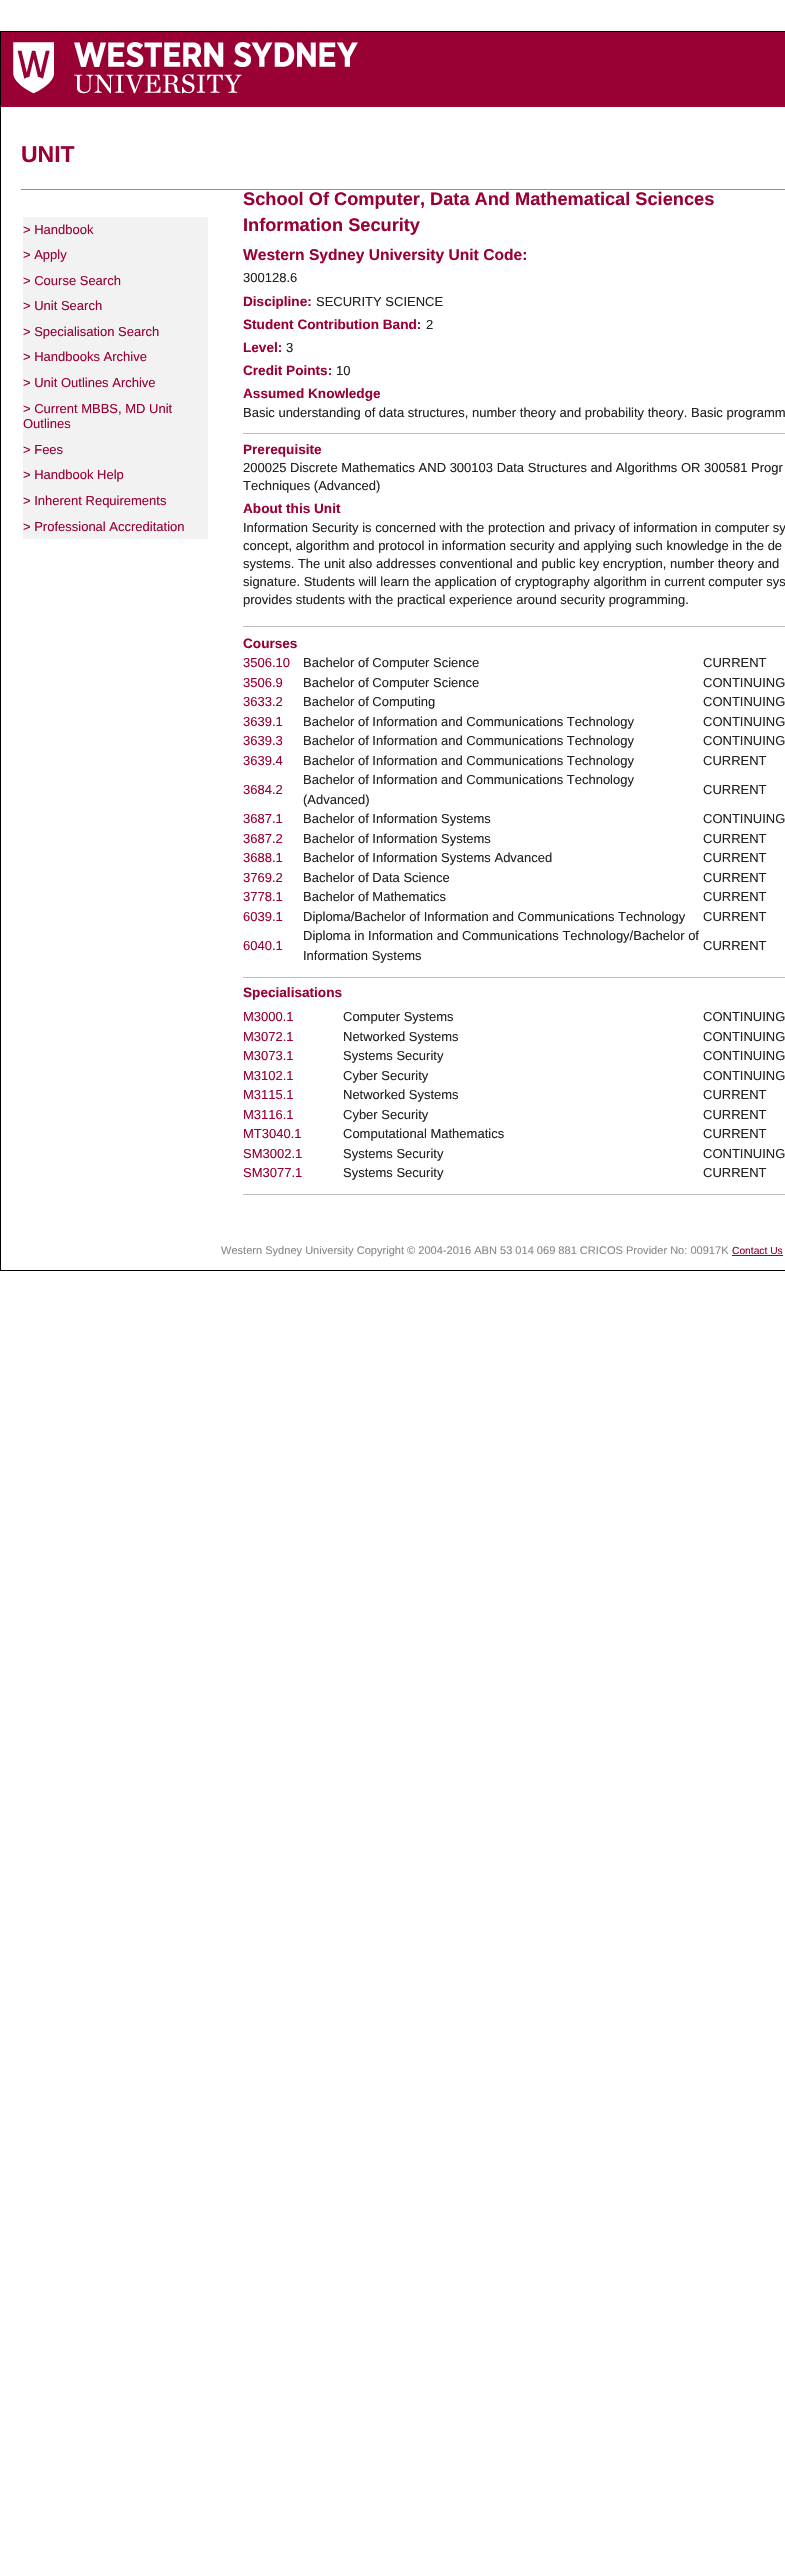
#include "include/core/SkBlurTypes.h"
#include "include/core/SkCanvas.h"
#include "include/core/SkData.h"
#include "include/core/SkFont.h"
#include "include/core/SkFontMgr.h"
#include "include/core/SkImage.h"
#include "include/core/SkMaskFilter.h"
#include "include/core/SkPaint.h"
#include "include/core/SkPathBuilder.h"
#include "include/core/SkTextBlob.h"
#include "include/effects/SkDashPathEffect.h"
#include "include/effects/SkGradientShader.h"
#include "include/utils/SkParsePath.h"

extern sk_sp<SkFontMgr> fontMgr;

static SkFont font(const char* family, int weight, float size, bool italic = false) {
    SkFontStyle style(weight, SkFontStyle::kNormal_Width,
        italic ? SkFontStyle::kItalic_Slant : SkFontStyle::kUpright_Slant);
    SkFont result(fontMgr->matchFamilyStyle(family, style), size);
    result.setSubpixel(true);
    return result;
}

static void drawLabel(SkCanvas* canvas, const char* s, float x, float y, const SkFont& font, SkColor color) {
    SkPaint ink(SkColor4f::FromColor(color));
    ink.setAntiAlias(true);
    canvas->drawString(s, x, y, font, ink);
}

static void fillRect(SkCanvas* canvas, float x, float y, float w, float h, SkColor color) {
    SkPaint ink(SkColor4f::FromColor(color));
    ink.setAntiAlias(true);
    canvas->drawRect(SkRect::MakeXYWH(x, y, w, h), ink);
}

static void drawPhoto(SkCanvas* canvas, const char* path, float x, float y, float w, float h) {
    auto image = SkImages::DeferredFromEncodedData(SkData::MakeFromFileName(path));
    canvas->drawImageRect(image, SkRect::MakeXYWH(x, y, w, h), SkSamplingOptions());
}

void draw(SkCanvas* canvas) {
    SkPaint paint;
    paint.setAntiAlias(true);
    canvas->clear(0xFFFFFFFF);
    paint.setStroke(true);
    paint.setStrokeWidth(1);
    paint.setColor(0xFF000000);
    canvas->drawRect(SkRect::MakeXYWH(0.5f, 31.5f, 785, 1239), paint);
    fillRect(canvas, 1, 32, 784, 75, 0xFF990033);
    drawPhoto(canvas, "assets/img1.png", 13, 42, 345, 52);
    fillRect(canvas, 21, 189, 764, 1, 0xFF8E9194);
    SkFont font1 = font("Liberation Sans", 700, 23);
    drawLabel(canvas, "UNIT", 21, 162, font1, 0xFF990033);
    fillRect(canvas, 23, 217, 185, 322, 0xFFF2F2F2);
    SkFont font2 = font("Liberation Sans", 400, 13);
    drawLabel(canvas, "> Handbook", 23, 234, font2, 0xFF990033);
    drawLabel(canvas, "> Apply", 23, 259, font2, 0xFF990033);
    drawLabel(canvas, "> Course Search", 23, 285, font2, 0xFF990033);
    drawLabel(canvas, "> Unit Search", 23, 310, font2, 0xFF990033);
    drawLabel(canvas, "> Specialisation Search", 23, 336, font2, 0xFF990033);
    drawLabel(canvas, "> Handbooks Archive", 23, 361, font2, 0xFF990033);
    drawLabel(canvas, "> Unit Outlines Archive", 23, 387, font2, 0xFF990033);
    drawLabel(canvas, "> Current MBBS, MD Unit", 23, 413, font2, 0xFF990033);
    drawLabel(canvas, "Outlines", 23, 428, font2, 0xFF990033);
    drawLabel(canvas, "> Fees", 23, 454, font2, 0xFF990033);
    drawLabel(canvas, "> Handbook Help", 23, 479, font2, 0xFF990033);
    drawLabel(canvas, "> Inherent Requirements", 23, 505, font2, 0xFF990033);
    drawLabel(canvas, "> Professional Accreditation", 23, 531, font2, 0xFF990033);
    SkFont font3 = font("Liberation Sans", 700, 18.2f);
    drawLabel(canvas, "School Of Computer, Data And Mathematical Sciences", 243, 205, font3, 0xFF990033);
    drawLabel(canvas, "Information Security", 243, 231, font3, 0xFF990033);
    SkFont font4 = font("Liberation Sans", 700, 15.6f);
    drawLabel(canvas, "Western Sydney University Unit Code:", 243, 260, font4, 0xFF990033);
    drawLabel(canvas, "300128.6", 243, 282, font2, 0xFF222222);
    SkFont font5 = font("Liberation Sans", 700, 13.6f);
    drawLabel(canvas, "Discipline:", 243, 306, font5, 0xFF990033);
    drawLabel(canvas, "SECURITY SCIENCE", 316, 306, font2, 0xFF222222);
    drawLabel(canvas, "Student Contribution Band:", 243, 329, font5, 0xFF990033);
    drawLabel(canvas, "2", 426, 329, font2, 0xFF222222);
    drawLabel(canvas, "Level:", 243, 352, font5, 0xFF990033);
    drawLabel(canvas, "3", 286, 352, font2, 0xFF222222);
    drawLabel(canvas, "Credit Points:", 243, 375, font5, 0xFF990033);
    drawLabel(canvas, "10", 336, 375, font2, 0xFF222222);
    drawLabel(canvas, "Assumed Knowledge", 243, 398, font5, 0xFF990033);
    drawLabel(canvas, "Basic understanding of data structures, number theory and probability theory. Basic programm", 243, 417, font2, 0xFF222222);
    fillRect(canvas, 243, 433, 542, 1, 0xFFC0C0C0);
    drawLabel(canvas, "Prerequisite", 243, 454, font5, 0xFF990033);
    drawLabel(canvas, "200025 Discrete Mathematics AND 300103 Data Structures and Algorithms OR 300581 Progr", 243, 472, font2, 0xFF222222);
    drawLabel(canvas, "Techniques (Advanced)", 243, 490, font2, 0xFF222222);
    drawLabel(canvas, "About this Unit", 243, 513, font5, 0xFF990033);
    drawLabel(canvas, "Information Security is concerned with the protection and privacy of information in computer sy", 243, 532, font2, 0xFF222222);
    drawLabel(canvas, "concept, algorithm and protocol in information security and applying such knowledge in the de", 243, 550, font2, 0xFF222222);
    drawLabel(canvas, "systems. The unit also addresses conventional and public key encryption, number theory and", 243, 568, font2, 0xFF222222);
    drawLabel(canvas, "signature. Students will learn the application of cryptography algorithm in current computer sys", 243, 586, font2, 0xFF222222);
    drawLabel(canvas, "provides students with the practical experience around security programming.", 243, 604, font2, 0xFF222222);
    fillRect(canvas, 243, 626, 542, 1, 0xFFC0C0C0);
    drawLabel(canvas, "Courses", 243, 648, font5, 0xFF990033);
    drawLabel(canvas, "3506.10", 243, 667, font2, 0xFF990033);
    drawLabel(canvas, "Bachelor of Computer Science", 303, 667, font2, 0xFF222222);
    drawLabel(canvas, "CURRENT", 703, 667, font2, 0xFF222222);
    drawLabel(canvas, "3506.9", 243, 687, font2, 0xFF990033);
    drawLabel(canvas, "Bachelor of Computer Science", 303, 687, font2, 0xFF222222);
    drawLabel(canvas, "CONTINUING", 703, 687, font2, 0xFF222222);
    drawLabel(canvas, "3633.2", 243, 706, font2, 0xFF990033);
    drawLabel(canvas, "Bachelor of Computing", 303, 706, font2, 0xFF222222);
    drawLabel(canvas, "CONTINUING", 703, 706, font2, 0xFF222222);
    drawLabel(canvas, "3639.1", 243, 726, font2, 0xFF990033);
    drawLabel(canvas, "Bachelor of Information and Communications Technology", 303, 726, font2, 0xFF222222);
    drawLabel(canvas, "CONTINUING", 703, 726, font2, 0xFF222222);
    drawLabel(canvas, "3639.3", 243, 745, font2, 0xFF990033);
    drawLabel(canvas, "Bachelor of Information and Communications Technology", 303, 745, font2, 0xFF222222);
    drawLabel(canvas, "CONTINUING", 703, 745, font2, 0xFF222222);
    drawLabel(canvas, "3639.4", 243, 765, font2, 0xFF990033);
    drawLabel(canvas, "Bachelor of Information and Communications Technology", 303, 765, font2, 0xFF222222);
    drawLabel(canvas, "CURRENT", 703, 765, font2, 0xFF222222);
    drawLabel(canvas, "3684.2", 243, 794, font2, 0xFF990033);
    drawLabel(canvas, "Bachelor of Information and Communications Technology", 303, 784, font2, 0xFF222222);
    drawLabel(canvas, "(Advanced)", 303, 804, font2, 0xFF222222);
    drawLabel(canvas, "CURRENT", 703, 794, font2, 0xFF222222);
    drawLabel(canvas, "3687.1", 243, 823, font2, 0xFF990033);
    drawLabel(canvas, "Bachelor of Information Systems", 303, 823, font2, 0xFF222222);
    drawLabel(canvas, "CONTINUING", 703, 823, font2, 0xFF222222);
    drawLabel(canvas, "3687.2", 243, 843, font2, 0xFF990033);
    drawLabel(canvas, "Bachelor of Information Systems", 303, 843, font2, 0xFF222222);
    drawLabel(canvas, "CURRENT", 703, 843, font2, 0xFF222222);
    drawLabel(canvas, "3688.1", 243, 862, font2, 0xFF990033);
    drawLabel(canvas, "Bachelor of Information Systems Advanced", 303, 862, font2, 0xFF222222);
    drawLabel(canvas, "CURRENT", 703, 862, font2, 0xFF222222);
    drawLabel(canvas, "3769.2", 243, 882, font2, 0xFF990033);
    drawLabel(canvas, "Bachelor of Data Science", 303, 882, font2, 0xFF222222);
    drawLabel(canvas, "CURRENT", 703, 882, font2, 0xFF222222);
    drawLabel(canvas, "3778.1", 243, 901, font2, 0xFF990033);
    drawLabel(canvas, "Bachelor of Mathematics", 303, 901, font2, 0xFF222222);
    drawLabel(canvas, "CURRENT", 703, 901, font2, 0xFF222222);
    drawLabel(canvas, "6039.1", 243, 921, font2, 0xFF990033);
    drawLabel(canvas, "Diploma/Bachelor of Information and Communications Technology", 303, 921, font2, 0xFF222222);
    drawLabel(canvas, "CURRENT", 703, 921, font2, 0xFF222222);
    drawLabel(canvas, "6040.1", 243, 950, font2, 0xFF990033);
    drawLabel(canvas, "Diploma in Information and Communications Technology/Bachelor of", 303, 940, font2, 0xFF222222);
    drawLabel(canvas, "Information Systems", 303, 960, font2, 0xFF222222);
    drawLabel(canvas, "CURRENT", 703, 950, font2, 0xFF222222);
    fillRect(canvas, 243, 977, 542, 1, 0xFFC0C0C0);
    drawLabel(canvas, "Specialisations", 243, 997, font5, 0xFF990033);
    drawLabel(canvas, "M3000.1", 243, 1021, font2, 0xFF990033);
    drawLabel(canvas, "Computer Systems", 343, 1021, font2, 0xFF222222);
    drawLabel(canvas, "CONTINUING", 703, 1021, font2, 0xFF222222);
    drawLabel(canvas, "M3072.1", 243, 1041, font2, 0xFF990033);
    drawLabel(canvas, "Networked Systems", 343, 1041, font2, 0xFF222222);
    drawLabel(canvas, "CONTINUING", 703, 1041, font2, 0xFF222222);
    drawLabel(canvas, "M3073.1", 243, 1060, font2, 0xFF990033);
    drawLabel(canvas, "Systems Security", 343, 1060, font2, 0xFF222222);
    drawLabel(canvas, "CONTINUING", 703, 1060, font2, 0xFF222222);
    drawLabel(canvas, "M3102.1", 243, 1080, font2, 0xFF990033);
    drawLabel(canvas, "Cyber Security", 343, 1080, font2, 0xFF222222);
    drawLabel(canvas, "CONTINUING", 703, 1080, font2, 0xFF222222);
    drawLabel(canvas, "M3115.1", 243, 1099, font2, 0xFF990033);
    drawLabel(canvas, "Networked Systems", 343, 1099, font2, 0xFF222222);
    drawLabel(canvas, "CURRENT", 703, 1099, font2, 0xFF222222);
    drawLabel(canvas, "M3116.1", 243, 1119, font2, 0xFF990033);
    drawLabel(canvas, "Cyber Security", 343, 1119, font2, 0xFF222222);
    drawLabel(canvas, "CURRENT", 703, 1119, font2, 0xFF222222);
    drawLabel(canvas, "MT3040.1", 243, 1138, font2, 0xFF990033);
    drawLabel(canvas, "Computational Mathematics", 343, 1138, font2, 0xFF222222);
    drawLabel(canvas, "CURRENT", 703, 1138, font2, 0xFF222222);
    drawLabel(canvas, "SM3002.1", 243, 1158, font2, 0xFF990033);
    drawLabel(canvas, "Systems Security", 343, 1158, font2, 0xFF222222);
    drawLabel(canvas, "CONTINUING", 703, 1158, font2, 0xFF222222);
    drawLabel(canvas, "SM3077.1", 243, 1177, font2, 0xFF990033);
    drawLabel(canvas, "Systems Security", 343, 1177, font2, 0xFF222222);
    drawLabel(canvas, "CURRENT", 703, 1177, font2, 0xFF222222);
    fillRect(canvas, 243, 1194, 542, 1, 0xFFC0C0C0);
    SkFont font6 = font("Liberation Sans", 400, 11.05f);
    drawLabel(canvas, "Western Sydney University Copyright © 2004-2016 ABN 53 014 069 881 CRICOS Provider No: 00917K", 221, 1254, font6, 0xFF888888);
    SkFont font7 = font("Liberation Sans", 400, 10.25f);
    drawLabel(canvas, "Contact Us", 732, 1254, font7, 0xFF990033);
    fillRect(canvas, 732, 1255, 51, 1, 0xFF990033);
}
